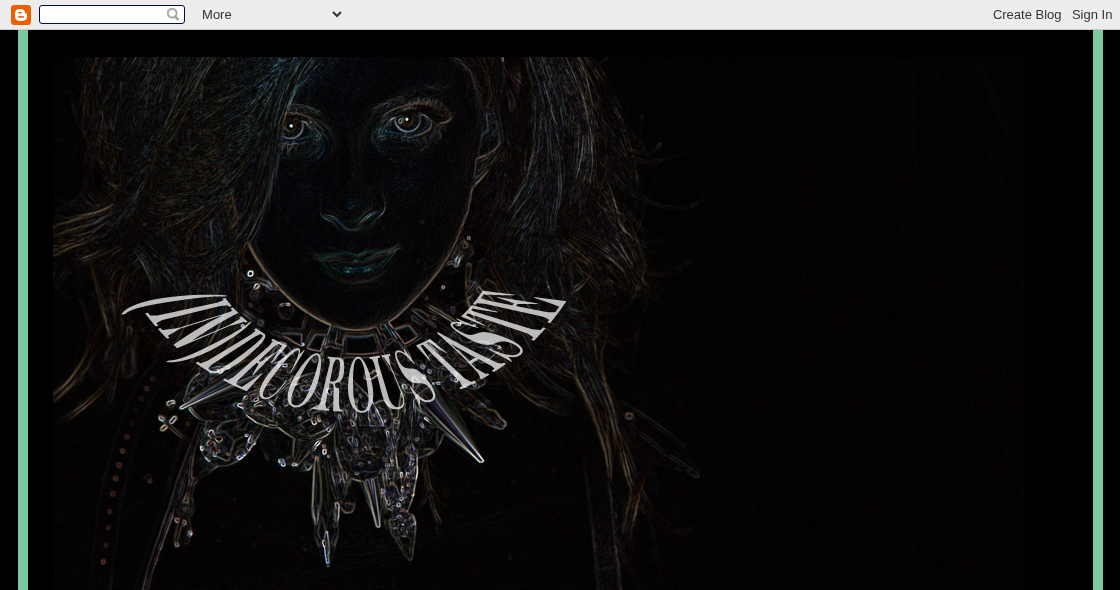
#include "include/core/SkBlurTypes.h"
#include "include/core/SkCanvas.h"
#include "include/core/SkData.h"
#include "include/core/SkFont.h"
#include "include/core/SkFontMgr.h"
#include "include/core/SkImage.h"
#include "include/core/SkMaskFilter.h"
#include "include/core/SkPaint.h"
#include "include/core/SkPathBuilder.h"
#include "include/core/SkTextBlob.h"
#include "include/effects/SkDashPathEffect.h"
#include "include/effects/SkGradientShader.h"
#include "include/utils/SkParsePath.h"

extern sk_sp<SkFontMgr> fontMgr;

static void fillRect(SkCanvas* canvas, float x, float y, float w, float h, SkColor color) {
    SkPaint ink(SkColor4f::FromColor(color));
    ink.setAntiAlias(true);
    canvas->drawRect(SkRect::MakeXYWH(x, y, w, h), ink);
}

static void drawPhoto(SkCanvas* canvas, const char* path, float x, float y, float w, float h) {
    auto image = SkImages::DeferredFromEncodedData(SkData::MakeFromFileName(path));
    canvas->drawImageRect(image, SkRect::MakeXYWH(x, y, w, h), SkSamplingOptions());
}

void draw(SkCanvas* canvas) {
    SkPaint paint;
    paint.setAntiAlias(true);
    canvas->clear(0xFF000000);
    drawPhoto(canvas, "assets/img1.png", 0, 0, 1120, 30);
    fillRect(canvas, 1093, 30, 10, 560, 0xFF79C9A2);
    fillRect(canvas, 18, 30, 10, 560, 0xFF79C9A2);
    drawPhoto(canvas, "assets/img2.png", 53, 57, 972, 533);
}
